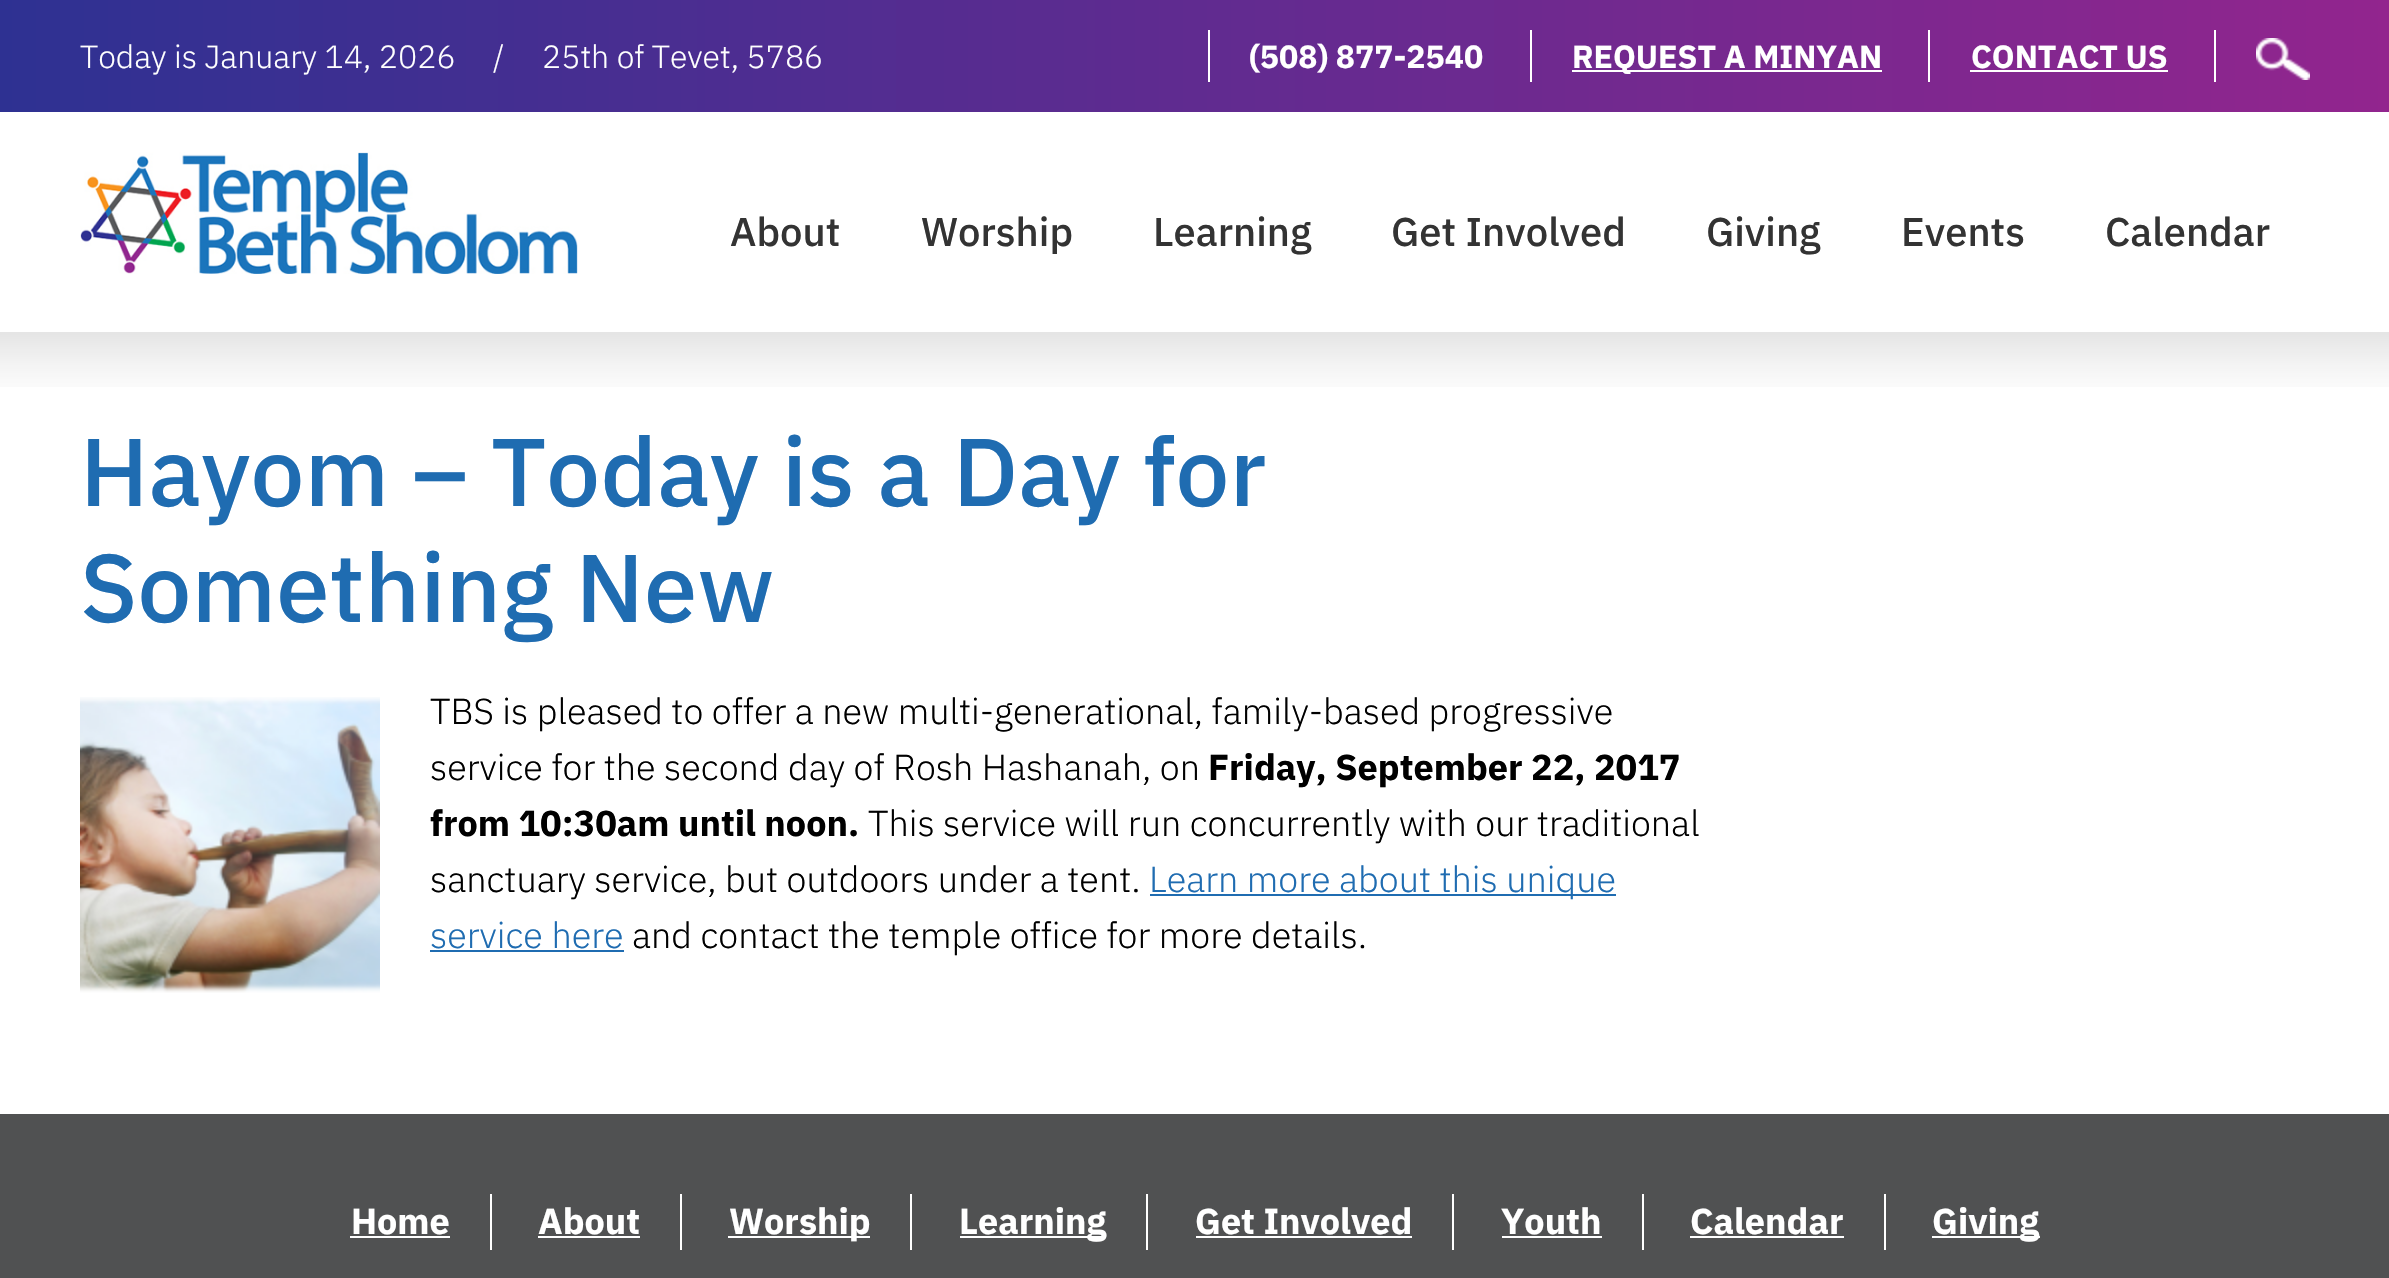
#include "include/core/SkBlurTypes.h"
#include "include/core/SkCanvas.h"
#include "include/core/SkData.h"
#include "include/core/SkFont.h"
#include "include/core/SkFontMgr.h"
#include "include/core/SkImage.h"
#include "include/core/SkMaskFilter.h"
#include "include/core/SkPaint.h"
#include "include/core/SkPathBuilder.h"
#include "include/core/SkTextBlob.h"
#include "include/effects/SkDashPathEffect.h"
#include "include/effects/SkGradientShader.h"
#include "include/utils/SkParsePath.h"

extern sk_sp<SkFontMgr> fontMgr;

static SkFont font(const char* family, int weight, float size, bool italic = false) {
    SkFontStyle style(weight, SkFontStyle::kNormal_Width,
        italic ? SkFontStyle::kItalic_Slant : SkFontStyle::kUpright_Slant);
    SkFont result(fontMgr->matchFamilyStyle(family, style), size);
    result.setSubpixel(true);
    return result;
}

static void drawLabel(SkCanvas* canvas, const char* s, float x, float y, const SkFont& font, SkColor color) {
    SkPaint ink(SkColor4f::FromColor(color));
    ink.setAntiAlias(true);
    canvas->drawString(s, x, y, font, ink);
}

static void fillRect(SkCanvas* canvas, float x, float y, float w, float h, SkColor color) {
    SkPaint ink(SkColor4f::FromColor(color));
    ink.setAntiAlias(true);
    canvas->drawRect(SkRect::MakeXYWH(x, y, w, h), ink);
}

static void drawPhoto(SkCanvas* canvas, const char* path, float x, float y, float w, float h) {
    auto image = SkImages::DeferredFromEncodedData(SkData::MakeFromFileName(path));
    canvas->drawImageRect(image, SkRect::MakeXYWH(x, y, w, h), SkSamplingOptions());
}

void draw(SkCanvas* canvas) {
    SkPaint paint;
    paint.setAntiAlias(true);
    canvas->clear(0xFF505152);
    {
        const SkColor colors[] = {0xFF2E3192, 0xFF92258E};
        const float stops[] = {0, 1};
        const SkPoint ends[] = {{0, 56}, {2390, 56}};
        paint.setShader(SkGradientShader::MakeLinear(ends, colors, stops, 2, SkTileMode::kClamp));
        paint.setAlpha(255);
    }
    canvas->drawRect(SkRect::MakeXYWH(0, 0, 2389, 112), paint);
    SkFont font1 = font("IBM Plex Sans", 300, 32);
    drawLabel(canvas, "Today is January 14, 2026", 80, 68, font1, 0xFFFFFFFF);
    drawLabel(canvas, "/", 493, 68, font1, 0xFFFFFFFF);
    drawLabel(canvas, "25th of Tevet, 5786", 542, 68, font1, 0xFFFFFFFF);
    fillRect(canvas, 1208, 30, 2, 52, 0xFFFFFFFF);
    SkFont font2 = font("IBM Plex Sans", 700, 32);
    drawLabel(canvas, "(508) 877-2540", 1249, 68, font2, 0xFFFFFFFF);
    fillRect(canvas, 1530, 30, 2, 52, 0xFFFFFFFF);
    fillRect(canvas, 1572, 70, 310, 2, 0xFFFFFFFF);
    drawLabel(canvas, "REQUEST A MINYAN", 1572, 68, font2, 0xFFFFFFFF);
    fillRect(canvas, 1928, 30, 2, 52, 0xFFFFFFFF);
    drawLabel(canvas, "CONTACT US", 1971, 68, font2, 0xFFFFFFFF);
    fillRect(canvas, 1970, 70, 198, 2, 0xFFFFFFFF);
    fillRect(canvas, 2214, 30, 2, 52, 0xFFFFFFFF);
    drawPhoto(canvas, "assets/img1.png", 2256, 38, 54, 42);
    fillRect(canvas, 0, 112, 2389, 220, 0xFFFFFFFF);
    drawPhoto(canvas, "assets/img2.png", 80, 152, 498, 122);
    SkFont font3 = font("IBM Plex Sans", 500, 40);
    drawLabel(canvas, "About", 730, 246, font3, 0xFF333333);
    drawLabel(canvas, "Worship", 921, 246, font3, 0xFF333333);
    drawLabel(canvas, "Learning", 1153, 246, font3, 0xFF333333);
    drawLabel(canvas, "Get Involved", 1391, 246, font3, 0xFF333333);
    drawLabel(canvas, "Giving", 1706, 246, font3, 0xFF333333);
    drawLabel(canvas, "Events", 1901, 246, font3, 0xFF333333);
    drawLabel(canvas, "Calendar", 2105, 246, font3, 0xFF333333);
    fillRect(canvas, 0, 387, 2389, 727, 0xFFFFFFFF);
    drawPhoto(canvas, "assets/img3.png", 0, 332, 2389, 55);
    SkFont font4 = font("IBM Plex Sans", 500, 96);
    drawLabel(canvas, "Hayom – Today is a Day for", 80, 506, font4, 0xFF1F6CB1);
    drawLabel(canvas, "Something New", 80, 622, font4, 0xFF1F6CB1);
    drawPhoto(canvas, "assets/img4.png", 80, 697, 300, 296);
    SkFont font5 = font("IBM Plex Sans", 300, 36);
    drawLabel(canvas, "TBS is pleased to offer a new multi-generational, family-based progressive", 430, 724, font5, 0xFF000000);
    drawLabel(canvas, "service for the second day of Rosh Hashanah, on", 430, 780, font5, 0xFF000000);
    SkFont font6 = font("IBM Plex Sans", 700, 36);
    drawLabel(canvas, "Friday, September 22, 2017", 1208, 780, font6, 0xFF000000);
    drawLabel(canvas, "from 10:30am until noon.", 430, 836, font6, 0xFF000000);
    drawLabel(canvas, "This service will run concurrently with our traditional", 868, 836, font5, 0xFF000000);
    drawLabel(canvas, "sanctuary service, but outdoors under a tent.", 430, 892, font5, 0xFF000000);
    fillRect(canvas, 1150, 894, 466, 2, 0xFF1F6CB1);
    drawLabel(canvas, "Learn more about this unique", 1149, 892, font5, 0xFF1F6CB1);
    drawLabel(canvas, "service here", 430, 948, font5, 0xFF1F6CB1);
    fillRect(canvas, 430, 950, 194, 2, 0xFF1F6CB1);
    drawLabel(canvas, "and contact the temple office for more details.", 632, 948, font5, 0xFF000000);
    fillRect(canvas, 490, 1194, 2, 56, 0xFFFFFFFF);
    drawLabel(canvas, "Home", 351, 1234, font6, 0xFFFFFFFF);
    fillRect(canvas, 350, 1236, 100, 2, 0xFFFFFFFF);
    fillRect(canvas, 680, 1194, 2, 56, 0xFFFFFFFF);
    drawLabel(canvas, "About", 538, 1234, font6, 0xFFFFFFFF);
    fillRect(canvas, 538, 1236, 102, 2, 0xFFFFFFFF);
    fillRect(canvas, 910, 1194, 2, 56, 0xFFFFFFFF);
    fillRect(canvas, 728, 1236, 142, 2, 0xFFFFFFFF);
    drawLabel(canvas, "Worship", 729, 1234, font6, 0xFFFFFFFF);
    fillRect(canvas, 1146, 1194, 2, 56, 0xFFFFFFFF);
    fillRect(canvas, 960, 1236, 146, 2, 0xFFFFFFFF);
    drawLabel(canvas, "Learning", 959, 1234, font6, 0xFFFFFFFF);
    fillRect(canvas, 1452, 1194, 2, 56, 0xFFFFFFFF);
    drawLabel(canvas, "Get Involved", 1195, 1234, font6, 0xFFFFFFFF);
    fillRect(canvas, 1196, 1236, 216, 2, 0xFFFFFFFF);
    fillRect(canvas, 1642, 1194, 2, 56, 0xFFFFFFFF);
    drawLabel(canvas, "Youth", 1501, 1234, font6, 0xFFFFFFFF);
    fillRect(canvas, 1502, 1236, 100, 2, 0xFFFFFFFF);
    fillRect(canvas, 1884, 1194, 2, 56, 0xFFFFFFFF);
    drawLabel(canvas, "Calendar", 1690, 1234, font6, 0xFFFFFFFF);
    fillRect(canvas, 1690, 1236, 154, 2, 0xFFFFFFFF);
    fillRect(canvas, 1932, 1236, 108, 2, 0xFFFFFFFF);
    drawLabel(canvas, "Giving", 1932, 1234, font6, 0xFFFFFFFF);
}
